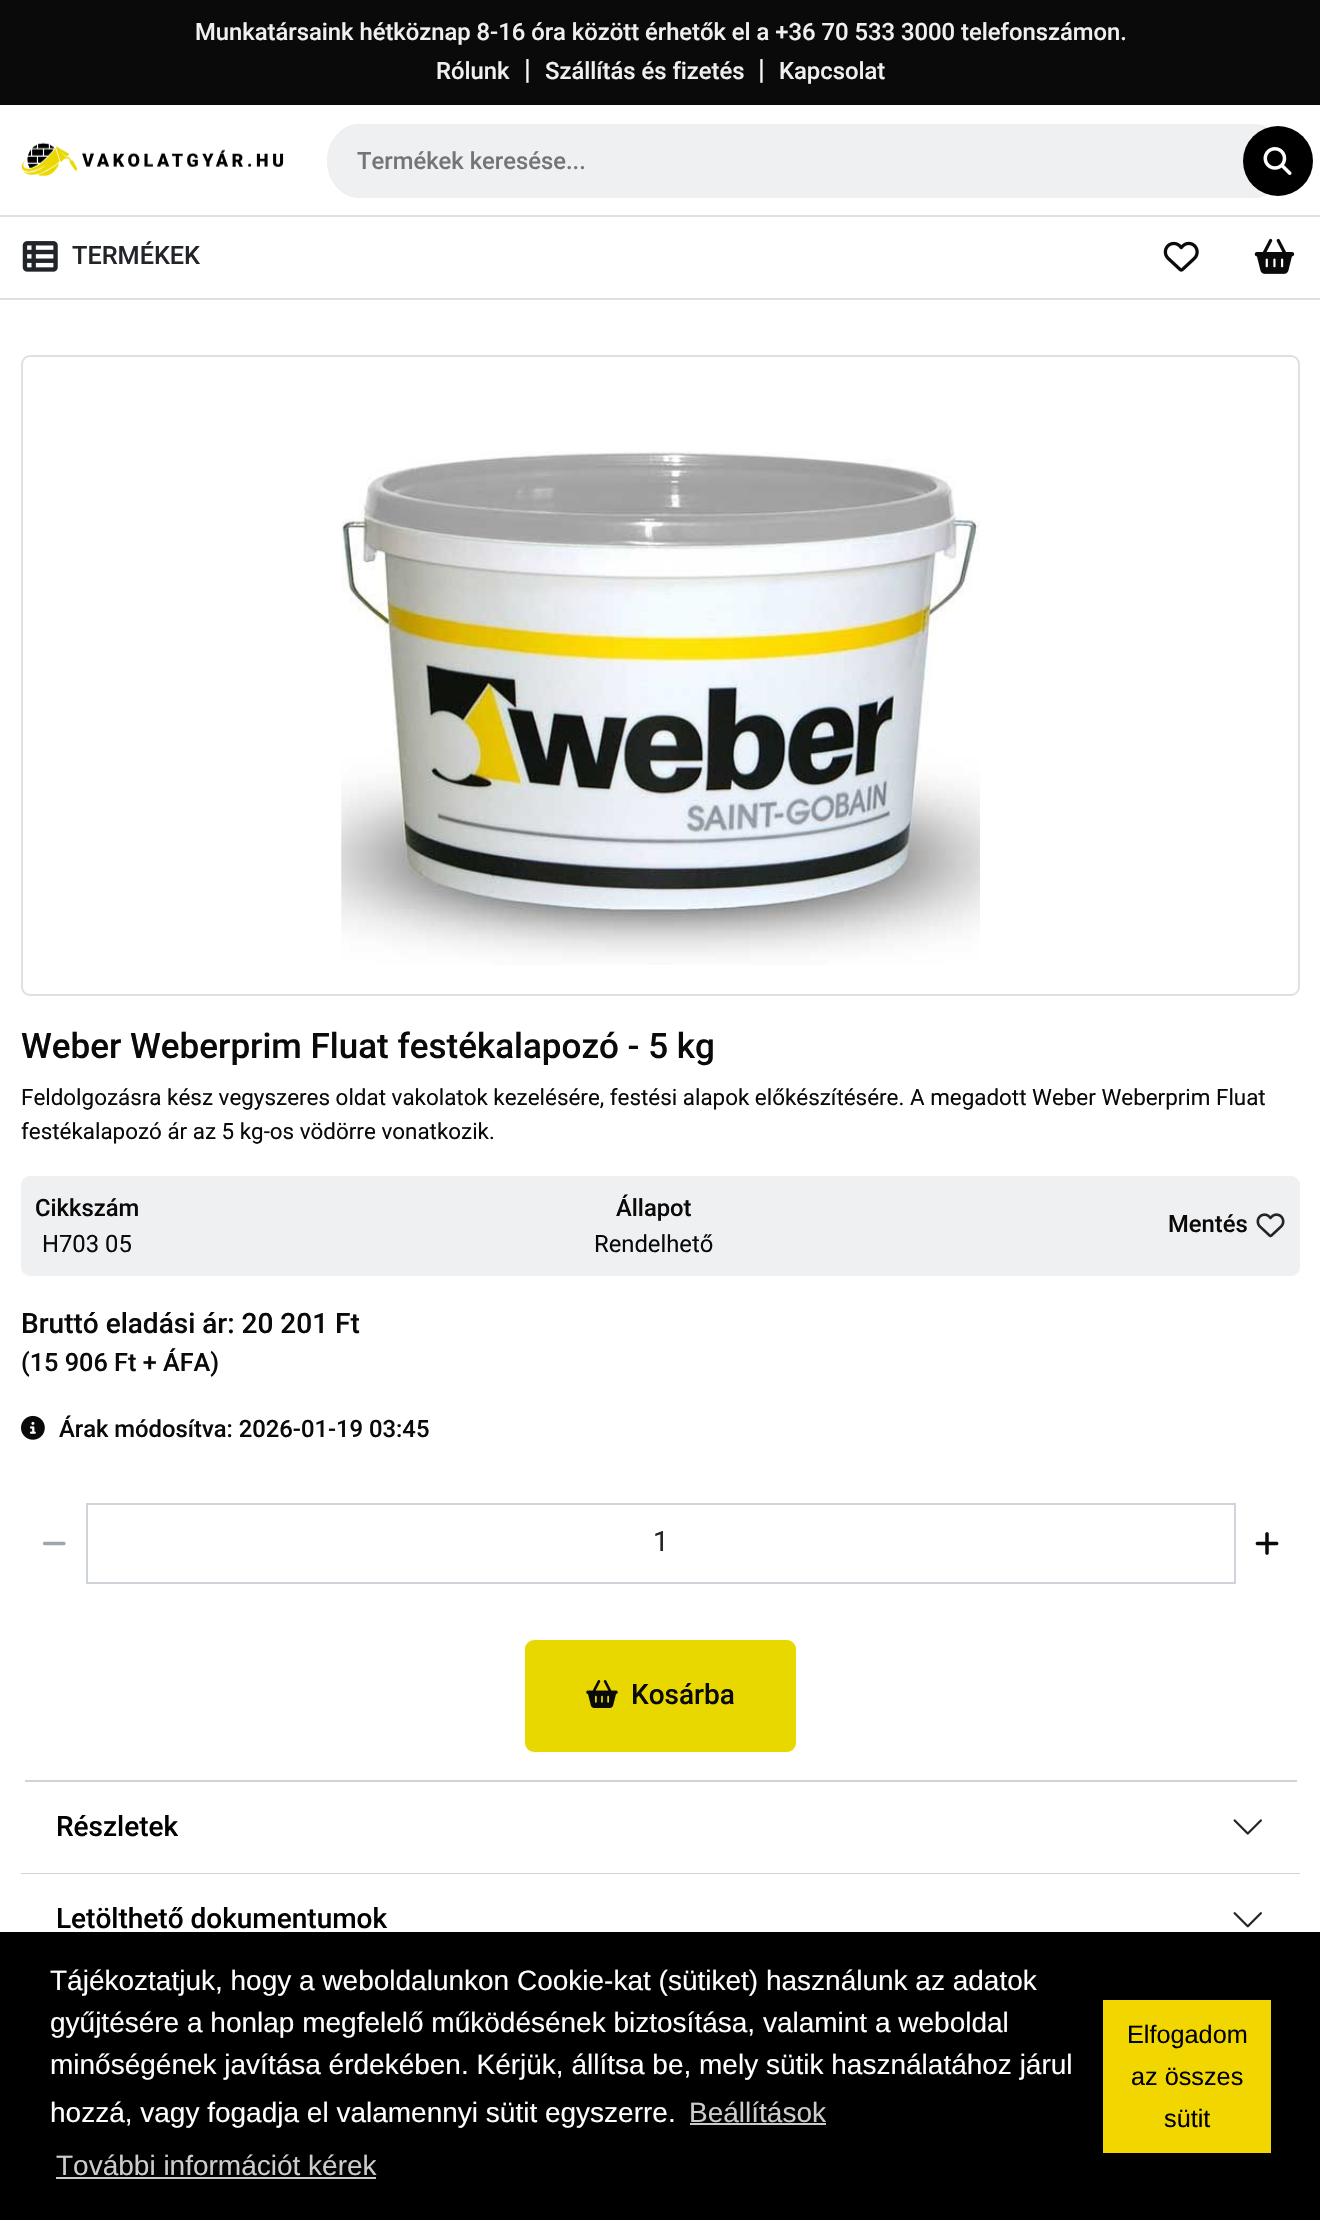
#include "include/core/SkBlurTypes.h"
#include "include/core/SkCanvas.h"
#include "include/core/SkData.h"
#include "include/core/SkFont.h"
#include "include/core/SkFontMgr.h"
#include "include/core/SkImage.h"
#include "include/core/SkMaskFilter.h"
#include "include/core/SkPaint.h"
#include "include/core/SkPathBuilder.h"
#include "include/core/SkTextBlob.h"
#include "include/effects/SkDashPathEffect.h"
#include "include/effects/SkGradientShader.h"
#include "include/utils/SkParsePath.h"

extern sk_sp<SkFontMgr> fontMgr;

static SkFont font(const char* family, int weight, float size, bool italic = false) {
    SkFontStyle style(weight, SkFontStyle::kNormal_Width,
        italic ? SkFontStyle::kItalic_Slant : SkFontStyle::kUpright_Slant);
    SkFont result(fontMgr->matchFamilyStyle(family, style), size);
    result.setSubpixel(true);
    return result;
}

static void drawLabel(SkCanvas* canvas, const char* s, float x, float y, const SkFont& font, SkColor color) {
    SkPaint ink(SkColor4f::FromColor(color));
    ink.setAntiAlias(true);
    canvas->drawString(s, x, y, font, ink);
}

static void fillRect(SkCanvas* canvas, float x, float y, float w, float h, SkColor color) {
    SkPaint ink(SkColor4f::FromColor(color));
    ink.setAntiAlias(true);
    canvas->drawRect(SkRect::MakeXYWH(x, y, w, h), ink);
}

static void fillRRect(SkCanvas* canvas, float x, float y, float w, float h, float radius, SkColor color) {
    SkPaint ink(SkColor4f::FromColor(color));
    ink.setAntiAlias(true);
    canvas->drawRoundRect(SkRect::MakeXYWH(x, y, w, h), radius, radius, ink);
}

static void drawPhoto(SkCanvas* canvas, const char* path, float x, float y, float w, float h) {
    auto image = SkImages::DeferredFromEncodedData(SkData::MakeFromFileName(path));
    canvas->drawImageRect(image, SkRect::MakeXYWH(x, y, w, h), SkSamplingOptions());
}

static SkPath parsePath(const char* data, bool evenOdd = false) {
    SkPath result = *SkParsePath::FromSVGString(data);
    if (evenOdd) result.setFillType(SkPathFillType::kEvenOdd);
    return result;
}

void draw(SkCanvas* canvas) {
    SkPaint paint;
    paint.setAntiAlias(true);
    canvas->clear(0xFFFFFFFF);
    fillRect(canvas, 0, 0, 1320, 105, 0xFF0B0A0A);
    SkFont font1 = font("Roboto", 500, 23.8f);
    drawLabel(canvas, "Munkatársaink hétköznap 8-16 óra között érhetők el a +36 70 533 3000 telefonszámon.", 195, 40, font1, 0xFFF0F0F0);
    drawLabel(canvas, "Rólunk", 436, 79, font1, 0xFFF0F0F0);
    SkFont font2 = font("Roboto", 400, 28);
    drawLabel(canvas, "|", 524, 79, font2, 0xFFF9F9F9);
    drawLabel(canvas, "Szállítás és fizetés", 545, 79, font1, 0xFFF0F0F0);
    drawLabel(canvas, "|", 758, 79, font2, 0xFFF9F9F9);
    drawLabel(canvas, "Kapcsolat", 779, 79, font1, 0xFFF0F0F0);
    drawPhoto(canvas, "assets/img1.png", 21, 142, 263, 34);
    paint.setColor(0xFFEFF0F1);
    canvas->drawPath(parsePath("M359 124H1254C1272 124 1286 141 1286 161C1286 181 1272 198 1254 198H359C342 198 327 181 327 161C327 141 342 124 359 124Z"), paint);
    paint.setStroke(true);
    paint.setStrokeWidth(1.8f);
    paint.setColor(0xFFEFEFEF);
    canvas->drawPath(parsePath("M359.5 125H1254C1271.5 125 1285.5 141 1285.5 161C1285.5 181 1271.5 197 1254 197H359.5C342 197 328 181 328 161C328 141 342 125 359.5 125Z"), paint);
    drawLabel(canvas, "Termékek keresése...", 357, 169, font1, 0xFF757575);
    paint.setStroke(false);
    paint.setColor(0xFF000000);
    canvas->drawCircle(1278, 161, 35, paint);
    drawPhoto(canvas, "assets/img2.png", 1263, 147, 29, 28);
    fillRect(canvas, 0, 215, 1320, 2, 0xFFE0E0E0);
    fillRect(canvas, 0, 298, 1320, 2, 0xFFE0E0E0);
    drawPhoto(canvas, "assets/img3.png", 22, 241, 36, 31);
    SkFont font3 = font("Roboto", 500, 25.25f);
    drawLabel(canvas, "TERMÉKEK", 72, 264, font3, 0xFF212529);
    drawPhoto(canvas, "assets/img4.png", 1163, 241, 36, 31);
    drawPhoto(canvas, "assets/img5.png", 1254, 238, 41, 36);
    paint.setStroke(true);
    paint.setStrokeWidth(2);
    paint.setColor(0xFFE0E0E0);
    canvas->drawRoundRect(SkRect::MakeXYWH(22, 356, 1277, 639), 8, 8, paint);
    drawPhoto(canvas, "assets/img6.png", 341, 451, 639, 514);
    SkFont font4 = font("Roboto", 500, 35);
    drawLabel(canvas, "Weber Weberprim Fluat festékalapozó - 5 kg", 21, 1058, font4, 0xFF0B0A0A);
    SkFont font5 = font("Roboto", 400, 22.4f);
    drawLabel(canvas, "Feldolgozásra kész vegyszeres oldat vakolatok kezelésére, festési alapok előkészítésére. A megadott Weber Weberprim Fluat", 21, 1105, font5, 0xFF0B0A0A);
    drawLabel(canvas, "festékalapozó ár az 5 kg-os vödörre vonatkozik.", 21, 1139, font5, 0xFF0B0A0A);
    fillRRect(canvas, 21, 1176, 1279, 100, 9, 0xFFEFF0F1);
    drawLabel(canvas, "Cikkszám", 35, 1216, font1, 0xFF0B0A0A);
    SkFont font6 = font("Roboto", 400, 23.8f);
    drawLabel(canvas, "H703 05", 42, 1252, font6, 0xFF0B0A0A);
    drawLabel(canvas, "Állapot", 616, 1216, font1, 0xFF0B0A0A);
    drawLabel(canvas, "Rendelhető", 594, 1252, font6, 0xFF0B0A0A);
    drawLabel(canvas, "Mentés", 1168, 1232, font1, 0xFF0B0A0A);
    drawPhoto(canvas, "assets/img7.png", 1256, 1213, 29, 25);
    SkFont font7 = font("Roboto", 500, 28);
    drawLabel(canvas, "Bruttó eladási ár: 20 201 Ft", 21, 1333, font7, 0xFF0B0A0A);
    drawLabel(canvas, "(15 906 Ft + ÁFA)", 21, 1371, font3, 0xFF0B0A0A);
    drawPhoto(canvas, "assets/img8.png", 21, 1415, 24, 25);
    drawLabel(canvas, "Árak módosítva: 2026-01-19 03:45", 59, 1437, font1, 0xFF0B0A0A);
    drawPhoto(canvas, "assets/img9.png", 42, 1541, 24, 5);
    paint.setColor(0xFFCED4DA);
    canvas->drawRect(SkRect::MakeXYWH(87, 1504, 1148, 79), paint);
    drawLabel(canvas, "1", 653, 1551, font2, 0xFF212529);
    drawPhoto(canvas, "assets/img10.png", 1255, 1532, 24, 23);
    fillRRect(canvas, 525, 1640, 271, 112, 9, 0xFFE9D700);
    drawPhoto(canvas, "assets/img11.png", 586, 1680, 32, 28);
    drawLabel(canvas, "Kosárba", 631, 1704, font7, 0xFF0B0A0A);
    fillRect(canvas, 25, 1780, 1272, 2, 0xFFCED4DA);
    drawLabel(canvas, "Részletek", 56, 1836, font7, 0xFF010101);
    drawPhoto(canvas, "assets/img12.png", 1233, 1819, 29, 16);
    fillRect(canvas, 21, 1873, 1279, 1, 0xFFCED4DA);
    drawLabel(canvas, "Letölthető dokumentumok", 56, 1928, font7, 0xFF010101);
    drawPhoto(canvas, "assets/img13.png", 1233, 1912, 29, 16);
    fillRect(canvas, 0, 1932, 1320, 288, 0xFF000000);
    SkFont font8 = font("Liberation Sans", 400, 28);
    drawLabel(canvas, "Tájékoztatjuk, hogy a weboldalunkon Cookie-kat (sütiket) használunk az adatok", 50, 1990, font8, 0xFFFFFFFF);
    drawLabel(canvas, "gyűjtésére a honlap megfelelő működésének biztosítása, valamint a weboldal", 50, 2032, font8, 0xFFFFFFFF);
    drawLabel(canvas, "minőségének javítása érdekében. Kérjük, állítsa be, mely sütik használatához járul", 50, 2074, font8, 0xFFFFFFFF);
    drawLabel(canvas, "hozzá, vagy fogadja el valamennyi sütit egyszerre.", 50, 2122, font8, 0xFFFFFFFF);
    drawLabel(canvas, "Beállítások", 689, 2122, font8, 0xFFCCCCCC);
    fillRect(canvas, 690, 2123, 136, 2, 0xFFCCCCCC);
    drawLabel(canvas, "További információt kérek", 56, 2175, font8, 0xFFCCCCCC);
    fillRect(canvas, 56, 2177, 320, 2, 0xFFCCCCCC);
    fillRect(canvas, 1103, 2000, 168, 153, 0xFFF1D600);
    SkFont font9 = font("Liberation Sans", 400, 25.25f);
    drawLabel(canvas, "Elfogadom", 1127, 2043, font9, 0xFF010101);
    drawLabel(canvas, "az összes", 1131, 2085, font9, 0xFF010101);
    drawLabel(canvas, "sütit", 1164, 2127, font9, 0xFF010101);
}
